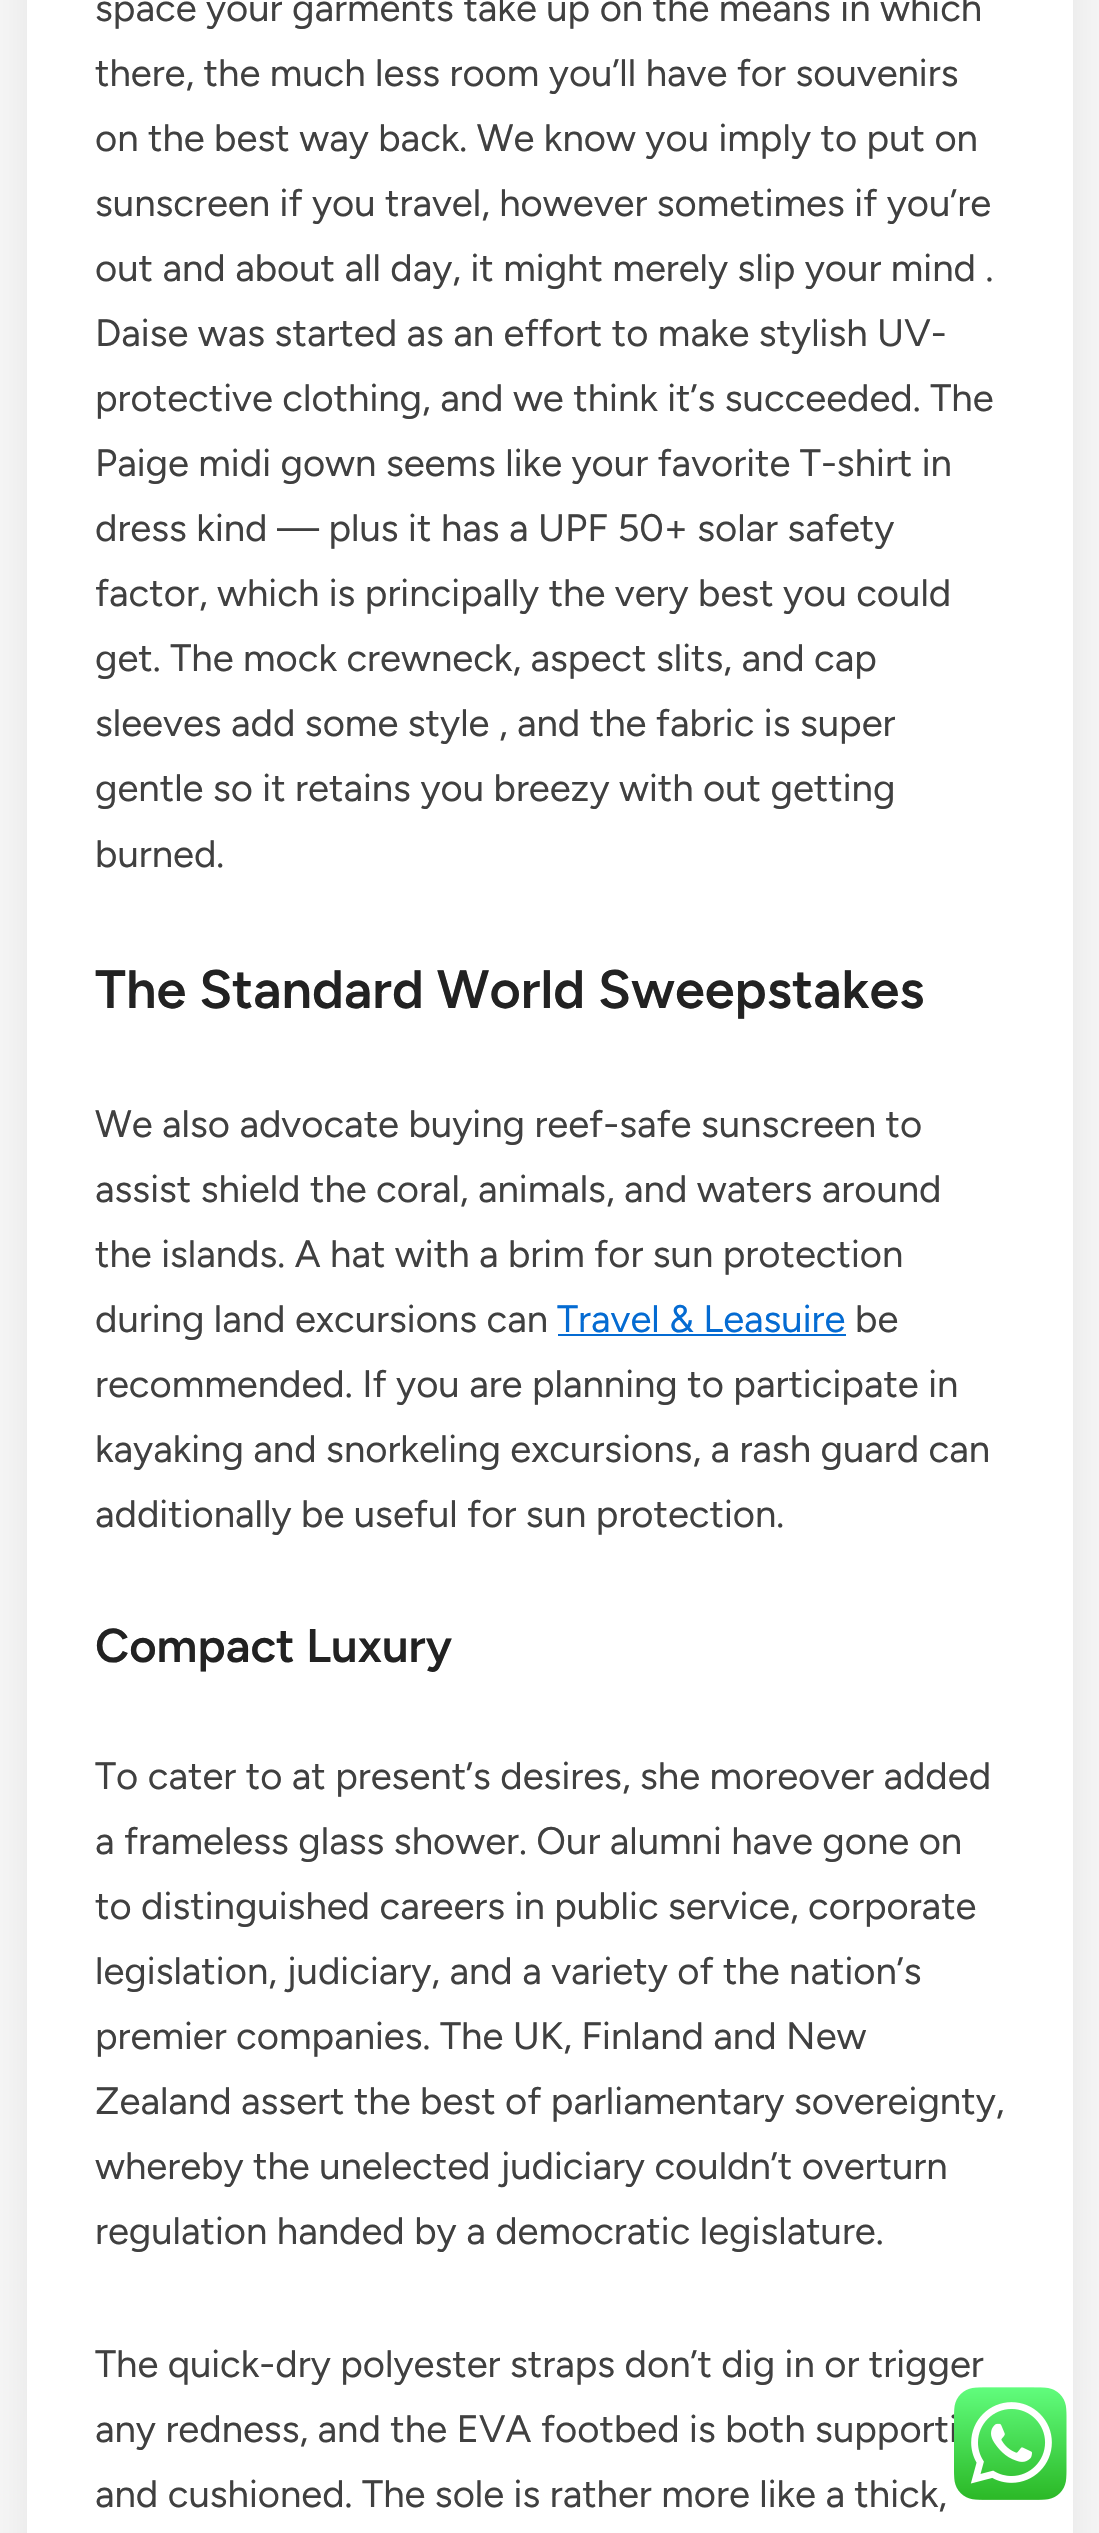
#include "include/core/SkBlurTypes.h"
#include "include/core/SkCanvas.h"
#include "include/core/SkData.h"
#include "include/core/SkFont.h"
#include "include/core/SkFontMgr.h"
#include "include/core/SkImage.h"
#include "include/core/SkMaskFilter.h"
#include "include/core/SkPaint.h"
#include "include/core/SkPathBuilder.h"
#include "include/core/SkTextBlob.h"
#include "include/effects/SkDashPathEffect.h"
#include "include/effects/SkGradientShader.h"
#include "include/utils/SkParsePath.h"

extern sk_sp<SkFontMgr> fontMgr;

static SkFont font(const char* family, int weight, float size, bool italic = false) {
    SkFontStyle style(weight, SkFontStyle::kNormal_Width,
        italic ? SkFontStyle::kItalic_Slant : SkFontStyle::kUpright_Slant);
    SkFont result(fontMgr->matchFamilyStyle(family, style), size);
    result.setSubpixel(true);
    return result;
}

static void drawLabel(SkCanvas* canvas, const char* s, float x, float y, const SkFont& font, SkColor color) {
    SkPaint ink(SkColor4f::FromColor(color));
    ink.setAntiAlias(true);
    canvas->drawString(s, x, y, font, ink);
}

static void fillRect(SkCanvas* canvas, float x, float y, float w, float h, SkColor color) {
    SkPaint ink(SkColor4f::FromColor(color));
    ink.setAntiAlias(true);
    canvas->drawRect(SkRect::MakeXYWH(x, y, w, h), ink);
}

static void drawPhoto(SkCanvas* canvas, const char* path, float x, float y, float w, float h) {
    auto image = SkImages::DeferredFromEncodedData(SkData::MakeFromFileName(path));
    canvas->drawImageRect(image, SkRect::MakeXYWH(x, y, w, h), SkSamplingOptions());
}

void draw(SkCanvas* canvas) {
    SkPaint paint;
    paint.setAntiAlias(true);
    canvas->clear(0xFFF5F5F5);
    paint.setColor(0x0F000000);
    paint.setMaskFilter(SkMaskFilter::MakeBlur(kNormal_SkBlurStyle, 17));
    canvas->drawRoundRect(SkRect::MakeXYWH(27, -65, 1046, 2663), 14, 14, paint);
    paint.setMaskFilter(nullptr);
    fillRect(canvas, 27, 0, 1046, 2533, 0xFFFFFFFF);
    SkFont font1 = font("Figtree", 400, 38.25f);
    drawLabel(canvas, "space your garments take up on the means in which", 95, 21, font1, 0xFF404040);
    drawLabel(canvas, "there, the much less room you’ll have for souvenirs", 95, 86, font1, 0xFF404040);
    drawLabel(canvas, "on the best way back. We know you imply to put on", 95, 151, font1, 0xFF404040);
    drawLabel(canvas, "sunscreen if you travel, however sometimes if you’re", 95, 216, font1, 0xFF404040);
    drawLabel(canvas, "out and about all day, it might merely slip your mind .", 95, 281, font1, 0xFF404040);
    drawLabel(canvas, "Daise was started as an effort to make stylish UV-", 95, 346, font1, 0xFF404040);
    drawLabel(canvas, "protective clothing, and we think it’s succeeded. The", 95, 411, font1, 0xFF404040);
    drawLabel(canvas, "Paige midi gown seems like your favorite T-shirt in", 95, 476, font1, 0xFF404040);
    drawLabel(canvas, "dress kind — plus it has a UPF 50+ solar safety", 95, 541, font1, 0xFF404040);
    drawLabel(canvas, "factor, which is principally the very best you could", 95, 606, font1, 0xFF404040);
    drawLabel(canvas, "get. The mock crewneck, aspect slits, and cap", 95, 671, font1, 0xFF404040);
    drawLabel(canvas, "sleeves add some style , and the fabric is super", 95, 736, font1, 0xFF404040);
    drawLabel(canvas, "gentle so it retains you breezy with out getting", 95, 801, font1, 0xFF404040);
    drawLabel(canvas, "burned.", 95, 867, font1, 0xFF404040);
    SkFont font2 = font("Figtree", 600, 54);
    drawLabel(canvas, "The Standard World Sweepstakes", 95, 1008, font2, 0xFF222222);
    drawLabel(canvas, "We also advocate buying reef-safe sunscreen to", 95, 1137, font1, 0xFF404040);
    drawLabel(canvas, "assist shield the coral, animals, and waters around", 95, 1202, font1, 0xFF404040);
    drawLabel(canvas, "the islands. A hat with a brim for sun protection", 95, 1267, font1, 0xFF404040);
    drawLabel(canvas, "during land excursions can", 95, 1332, font1, 0xFF404040);
    drawLabel(canvas, "Travel & Leasuire", 557, 1332, font1, 0xFF046BD2);
    fillRect(canvas, 558, 1334, 288, 2, 0xFF046BD2);
    drawLabel(canvas, "be", 855, 1332, font1, 0xFF404040);
    drawLabel(canvas, "recommended. If you are planning to participate in", 95, 1397, font1, 0xFF404040);
    drawLabel(canvas, "kayaking and snorkeling excursions, a rash guard can", 95, 1462, font1, 0xFF404040);
    drawLabel(canvas, "additionally be useful for sun protection.", 95, 1527, font1, 0xFF404040);
    SkFont font3 = font("Figtree", 600, 47.25f);
    drawLabel(canvas, "Compact Luxury", 95, 1662, font3, 0xFF222222);
    drawLabel(canvas, "To cater to at present’s desires, she moreover added", 95, 1789, font1, 0xFF404040);
    drawLabel(canvas, "a frameless glass shower. Our alumni have gone on", 95, 1854, font1, 0xFF404040);
    drawLabel(canvas, "to distinguished careers in public service, corporate", 95, 1919, font1, 0xFF404040);
    drawLabel(canvas, "legislation, judiciary, and a variety of the nation’s", 95, 1984, font1, 0xFF404040);
    drawLabel(canvas, "premier companies. The UK, Finland and New", 95, 2049, font1, 0xFF404040);
    drawLabel(canvas, "Zealand assert the best of parliamentary sovereignty,", 95, 2114, font1, 0xFF404040);
    drawLabel(canvas, "whereby the unelected judiciary couldn’t overturn", 95, 2179, font1, 0xFF404040);
    drawLabel(canvas, "regulation handed by a democratic legislature.", 95, 2244, font1, 0xFF404040);
    drawLabel(canvas, "The quick-dry polyester straps don’t dig in or trigger", 95, 2377, font1, 0xFF404040);
    drawLabel(canvas, "any redness, and the EVA footbed is both supporti", 95, 2442, font1, 0xFF404040);
    drawLabel(canvas, "and cushioned. The sole is rather more like a thick,", 95, 2507, font1, 0xFF404040);
    drawPhoto(canvas, "assets/img1.png", 954, 2387, 113, 113);
}
